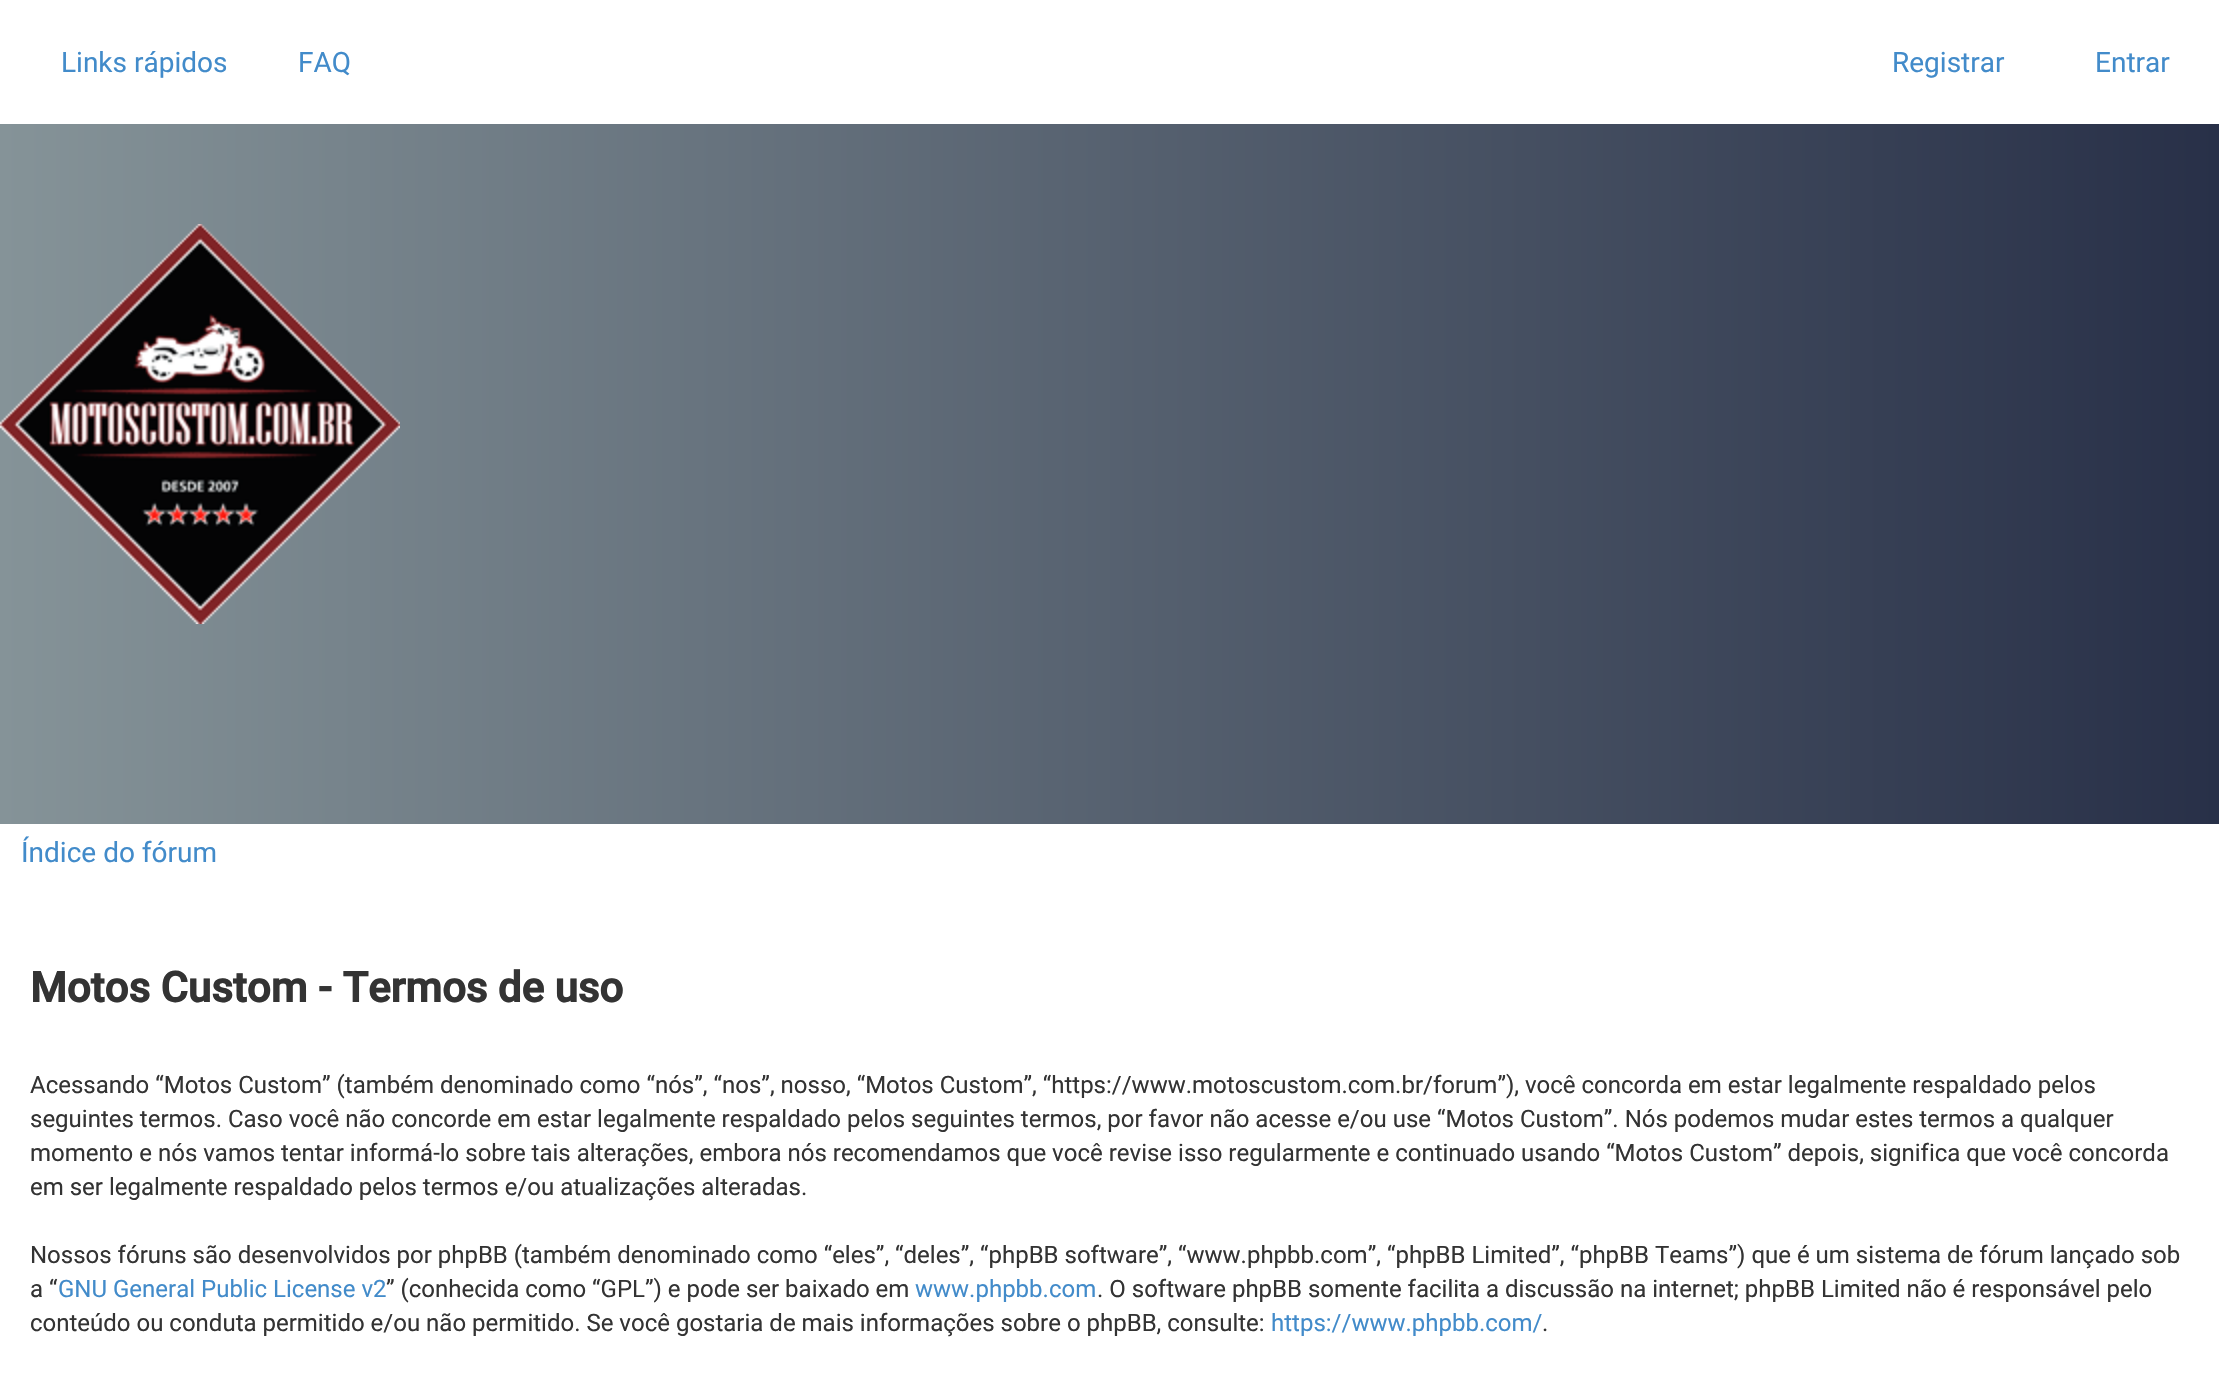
#include "include/core/SkBlurTypes.h"
#include "include/core/SkCanvas.h"
#include "include/core/SkData.h"
#include "include/core/SkFont.h"
#include "include/core/SkFontMgr.h"
#include "include/core/SkImage.h"
#include "include/core/SkMaskFilter.h"
#include "include/core/SkPaint.h"
#include "include/core/SkPathBuilder.h"
#include "include/core/SkTextBlob.h"
#include "include/effects/SkDashPathEffect.h"
#include "include/effects/SkGradientShader.h"
#include "include/utils/SkParsePath.h"

extern sk_sp<SkFontMgr> fontMgr;

static SkFont font(const char* family, int weight, float size, bool italic = false) {
    SkFontStyle style(weight, SkFontStyle::kNormal_Width,
        italic ? SkFontStyle::kItalic_Slant : SkFontStyle::kUpright_Slant);
    SkFont result(fontMgr->matchFamilyStyle(family, style), size);
    result.setSubpixel(true);
    return result;
}

static void drawLabel(SkCanvas* canvas, const char* s, float x, float y, const SkFont& font, SkColor color) {
    SkPaint ink(SkColor4f::FromColor(color));
    ink.setAntiAlias(true);
    canvas->drawString(s, x, y, font, ink);
}

static void drawPhoto(SkCanvas* canvas, const char* path, float x, float y, float w, float h) {
    auto image = SkImages::DeferredFromEncodedData(SkData::MakeFromFileName(path));
    canvas->drawImageRect(image, SkRect::MakeXYWH(x, y, w, h), SkSamplingOptions());
}

void draw(SkCanvas* canvas) {
    SkPaint paint;
    paint.setAntiAlias(true);
    canvas->clear(0xFFFFFFFF);
    SkFont font1 = font("Roboto", 400, 28);
    drawLabel(canvas, "Links rápidos", 61, 72, font1, 0xFF428BCA);
    drawLabel(canvas, "FAQ", 298, 72, font1, 0xFF428BCA);
    drawLabel(canvas, "Registrar", 1892, 72, font1, 0xFF428BCA);
    drawLabel(canvas, "Entrar", 2095, 72, font1, 0xFF428BCA);
    {
        const SkColor colors[] = {0xFF859398, 0xFF283048};
        const float stops[] = {0, 1};
        const SkPoint ends[] = {{0, 474}, {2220, 474}};
        paint.setShader(SkGradientShader::MakeLinear(ends, colors, stops, 2, SkTileMode::kClamp));
        paint.setAlpha(255);
    }
    canvas->drawRect(SkRect::MakeXYWH(0, 124, 2219, 700), paint);
    drawPhoto(canvas, "assets/img1.png", 0, 224, 400, 400);
    drawLabel(canvas, "Índice do fórum", 21, 862, font1, 0xFF428BCA);
    SkFont font2 = font("Roboto", 700, 42);
    drawLabel(canvas, "Motos Custom - Termos de uso", 30, 1002, font2, 0xFF333333);
    SkFont font3 = font("Roboto", 400, 24);
    drawLabel(canvas, "Acessando “Motos Custom” (também denominado como “nós”, “nos”, nosso, “Motos Custom”, “https://www.motoscustom.com.br/forum”), você concorda em estar legalmente respaldado pelos", 30, 1093, font3, 0xFF333333);
    drawLabel(canvas, "seguintes termos. Caso você não concorde em estar legalmente respaldado pelos seguintes termos, por favor não acesse e/ou use “Motos Custom”. Nós podemos mudar estes termos a qualquer", 30, 1127, font3, 0xFF333333);
    drawLabel(canvas, "momento e nós vamos tentar informá-lo sobre tais alterações, embora nós recomendamos que você revise isso regularmente e continuado usando “Motos Custom” depois, significa que você concorda", 30, 1161, font3, 0xFF333333);
    drawLabel(canvas, "em ser legalmente respaldado pelos termos e/ou atualizações alteradas.", 30, 1195, font3, 0xFF333333);
    drawLabel(canvas, "Nossos fóruns são desenvolvidos por phpBB (também denominado como “eles”, “deles”, “phpBB software”, “www.phpbb.com”, “phpBB Limited”, “phpBB Teams”) que é um sistema de fórum lançado sob", 30, 1263, font3, 0xFF333333);
    drawLabel(canvas, "a “", 30, 1297, font3, 0xFF333333);
    drawLabel(canvas, "GNU General Public License v2", 58, 1297, font3, 0xFF428BCA);
    drawLabel(canvas, "” (conhecida como “GPL”) e pode ser baixado em", 386, 1297, font3, 0xFF333333);
    drawLabel(canvas, "www.phpbb.com", 915, 1297, font3, 0xFF428BCA);
    drawLabel(canvas, ". O software phpBB somente facilita a discussão na internet; phpBB Limited não é responsável pelo", 1097, 1297, font3, 0xFF333333);
    drawLabel(canvas, "conteúdo ou conduta permitido e/ou não permitido. Se você gostaria de mais informações sobre o phpBB, consulte:", 30, 1331, font3, 0xFF333333);
    drawLabel(canvas, "https://www.phpbb.com/", 1271, 1331, font3, 0xFF428BCA);
    drawLabel(canvas, ".", 1542, 1331, font3, 0xFF333333);
}
